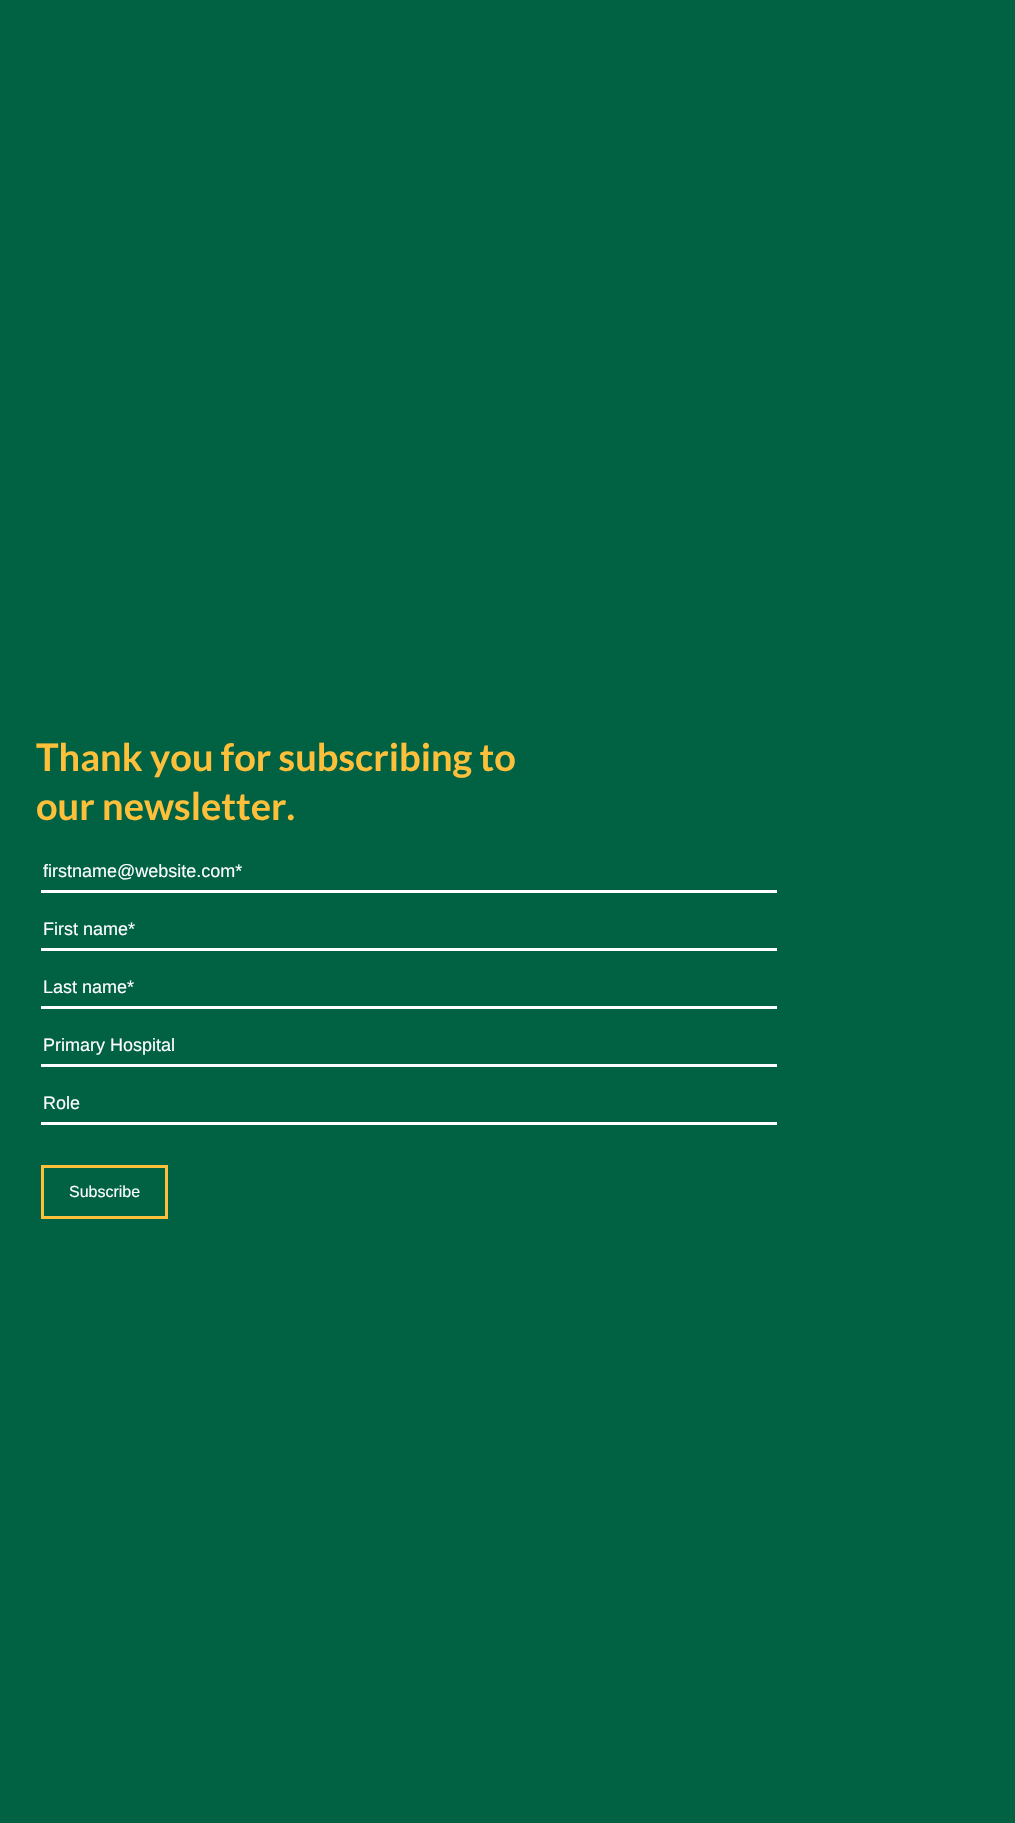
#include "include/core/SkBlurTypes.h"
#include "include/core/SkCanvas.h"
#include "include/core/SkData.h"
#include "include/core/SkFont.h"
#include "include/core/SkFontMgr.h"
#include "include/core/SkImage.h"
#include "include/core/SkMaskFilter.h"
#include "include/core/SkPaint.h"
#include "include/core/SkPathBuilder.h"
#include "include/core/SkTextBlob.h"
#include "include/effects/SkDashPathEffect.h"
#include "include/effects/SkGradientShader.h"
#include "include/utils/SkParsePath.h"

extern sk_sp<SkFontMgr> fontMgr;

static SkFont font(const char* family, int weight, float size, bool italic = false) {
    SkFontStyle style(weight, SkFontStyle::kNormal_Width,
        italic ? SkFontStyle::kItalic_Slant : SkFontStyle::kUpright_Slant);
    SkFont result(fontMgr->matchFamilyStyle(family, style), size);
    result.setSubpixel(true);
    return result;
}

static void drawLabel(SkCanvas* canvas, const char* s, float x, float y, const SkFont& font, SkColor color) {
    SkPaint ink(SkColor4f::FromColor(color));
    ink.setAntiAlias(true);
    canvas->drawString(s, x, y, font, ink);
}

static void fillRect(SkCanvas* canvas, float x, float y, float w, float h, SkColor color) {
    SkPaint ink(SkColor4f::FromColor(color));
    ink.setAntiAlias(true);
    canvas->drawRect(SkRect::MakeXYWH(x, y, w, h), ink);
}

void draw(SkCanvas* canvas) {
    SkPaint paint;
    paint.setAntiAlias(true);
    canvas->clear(0xFF006242);
    SkFont font1 = font("Lato", 700, 38);
    drawLabel(canvas, "Thank you for subscribing to", 36, 771, font1, 0xFFFEBF3A);
    drawLabel(canvas, "our newsletter.", 36, 820, font1, 0xFFFEBF3A);
    fillRect(canvas, 41, 890, 736, 3, 0xFFFFFFFF);
    SkFont font2 = font("Liberation Sans", 400, 18);
    drawLabel(canvas, "firstname@website.com*", 43, 877, font2, 0xFFFFFFFF);
    fillRect(canvas, 41, 948, 736, 3, 0xFFFFFFFF);
    drawLabel(canvas, "First name*", 43, 935, font2, 0xFFFFFFFF);
    fillRect(canvas, 41, 1006, 736, 3, 0xFFFFFFFF);
    drawLabel(canvas, "Last name*", 43, 993, font2, 0xFFFFFFFF);
    fillRect(canvas, 41, 1064, 736, 3, 0xFFFFFFFF);
    drawLabel(canvas, "Primary Hospital", 43, 1051, font2, 0xFFFFFFFF);
    fillRect(canvas, 41, 1122, 736, 3, 0xFFFFFFFF);
    drawLabel(canvas, "Role", 43, 1109, font2, 0xFFFFFFFF);
    paint.setStroke(true);
    paint.setStrokeWidth(3);
    paint.setColor(0xFFFEBF3A);
    canvas->drawRect(SkRect::MakeXYWH(42.5f, 1166.5f, 124, 51), paint);
    SkFont font3 = font("Liberation Sans", 400, 16);
    drawLabel(canvas, "Subscribe", 69, 1197, font3, 0xFFFFFFFF);
}
